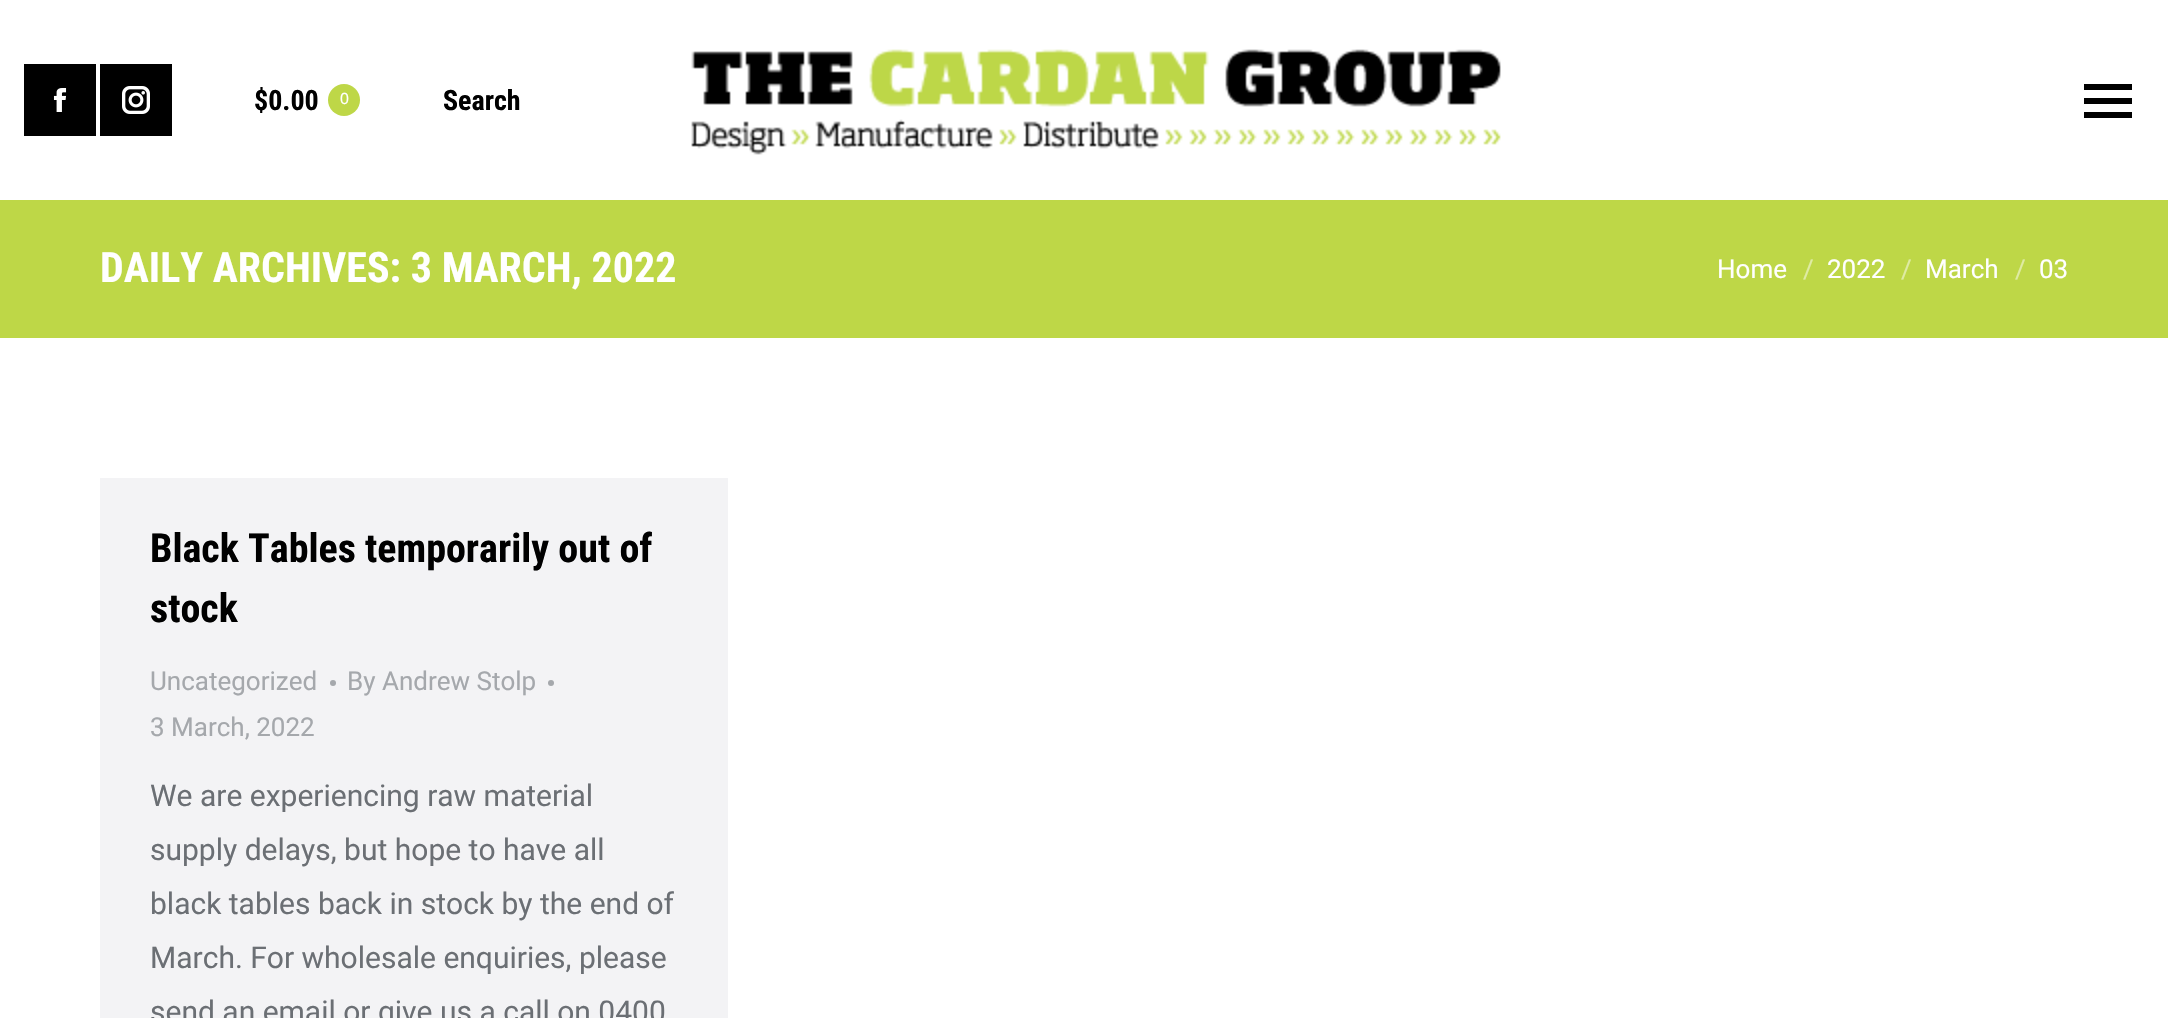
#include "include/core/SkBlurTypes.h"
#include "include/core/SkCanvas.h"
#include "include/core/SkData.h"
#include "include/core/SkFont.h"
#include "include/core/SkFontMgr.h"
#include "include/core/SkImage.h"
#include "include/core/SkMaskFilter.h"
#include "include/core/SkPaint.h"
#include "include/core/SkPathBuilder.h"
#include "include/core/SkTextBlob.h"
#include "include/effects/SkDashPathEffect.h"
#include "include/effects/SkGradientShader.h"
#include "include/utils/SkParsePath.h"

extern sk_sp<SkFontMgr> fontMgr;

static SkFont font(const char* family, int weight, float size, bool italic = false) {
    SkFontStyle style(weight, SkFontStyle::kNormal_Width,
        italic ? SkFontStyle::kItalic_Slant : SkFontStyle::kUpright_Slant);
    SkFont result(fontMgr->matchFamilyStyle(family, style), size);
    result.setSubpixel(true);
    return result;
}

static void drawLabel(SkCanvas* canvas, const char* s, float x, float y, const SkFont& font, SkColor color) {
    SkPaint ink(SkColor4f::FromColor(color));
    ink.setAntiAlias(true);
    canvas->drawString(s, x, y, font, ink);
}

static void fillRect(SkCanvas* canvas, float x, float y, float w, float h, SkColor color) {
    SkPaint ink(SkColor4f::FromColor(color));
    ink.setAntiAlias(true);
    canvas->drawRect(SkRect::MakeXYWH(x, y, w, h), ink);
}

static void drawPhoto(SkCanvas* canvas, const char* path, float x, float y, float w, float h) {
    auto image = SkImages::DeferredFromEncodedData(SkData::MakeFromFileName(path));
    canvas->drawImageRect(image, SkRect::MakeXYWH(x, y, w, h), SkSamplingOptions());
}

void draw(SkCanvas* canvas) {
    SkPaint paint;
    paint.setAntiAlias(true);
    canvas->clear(0xFFFFFFFF);
    fillRect(canvas, 24, 64, 72, 72, 0xFF000000);
    drawPhoto(canvas, "assets/img1.png", 53, 88, 14, 24);
    fillRect(canvas, 100, 64, 72, 72, 0xFF000000);
    drawPhoto(canvas, "assets/img2.png", 122, 86, 28, 28);
    SkFont font1 = font("Roboto Condensed", 700, 28);
    drawLabel(canvas, "$0.00", 254, 110, font1, 0xFF000000);
    paint.setColor(0xFFBED747);
    canvas->drawCircle(344, 100, 16, paint);
    SkFont font2 = font("Liberation Sans", 400, 16);
    drawLabel(canvas, "0", 340, 104, font2, 0xFFFFFFFF);
    drawLabel(canvas, "Search", 443, 110, font1, 0xFF000000);
    drawPhoto(canvas, "assets/img3.png", 691, 49, 810, 106);
    fillRect(canvas, 2084, 84, 48, 6, 0xFF000000);
    fillRect(canvas, 2084, 98, 48, 6, 0xFF000000);
    fillRect(canvas, 2084, 112, 48, 6, 0xFF000000);
    fillRect(canvas, 0, 200, 2168, 138, 0xFFBED747);
    SkFont font3 = font("Roboto Condensed", 700, 42);
    drawLabel(canvas, "DAILY ARCHIVES: 3 MARCH, 2022", 100, 282, font3, 0xFFFFFFFF);
    SkFont font4 = font("Roboto", 400, 26);
    drawLabel(canvas, "Home", 1717, 278, font4, 0xFFFFFFFF);
    drawLabel(canvas, "/", 1803, 278, font4, 0xFFDFEBA3);
    drawLabel(canvas, "2022", 1827, 278, font4, 0xFFFFFFFF);
    drawLabel(canvas, "/", 1901, 278, font4, 0xFFDFEBA3);
    drawLabel(canvas, "March", 1925, 278, font4, 0xFFFFFFFF);
    drawLabel(canvas, "/", 2015, 278, font4, 0xFFDFEBA3);
    drawLabel(canvas, "03", 2039, 278, font4, 0xFFFFFFFF);
    fillRect(canvas, 100, 478, 628, 540, 0xFFF3F3F5);
    SkFont font5 = font("Roboto Condensed", 700, 40);
    drawLabel(canvas, "Black Tables temporarily out of", 150, 562, font5, 0xFF000000);
    drawLabel(canvas, "stock", 150, 622, font5, 0xFF000000);
    drawLabel(canvas, "Uncategorized", 150, 690, font4, 0xFFA5A8AC);
    paint.setColor(0xFFA5A8AC);
    canvas->drawCircle(333, 683, 3, paint);
    drawLabel(canvas, "By Andrew Stolp", 347, 690, font4, 0xFFA5A8AC);
    canvas->drawCircle(551, 683, 3, paint);
    drawLabel(canvas, "3 March, 2022", 150, 736, font4, 0xFFA5A8AC);
    SkFont font6 = font("Roboto", 400, 30);
    drawLabel(canvas, "We are experiencing raw material", 150, 806, font6, 0xFF6B6F74);
    drawLabel(canvas, "supply delays, but hope to have all", 150, 860, font6, 0xFF6B6F74);
    drawLabel(canvas, "black tables back in stock by the end of", 150, 914, font6, 0xFF6B6F74);
    drawLabel(canvas, "March. For wholesale enquiries, please", 150, 968, font6, 0xFF6B6F74);
    drawLabel(canvas, "send an email or give us a call on 0400", 150, 1022, font6, 0xFF6B6F74);
}
